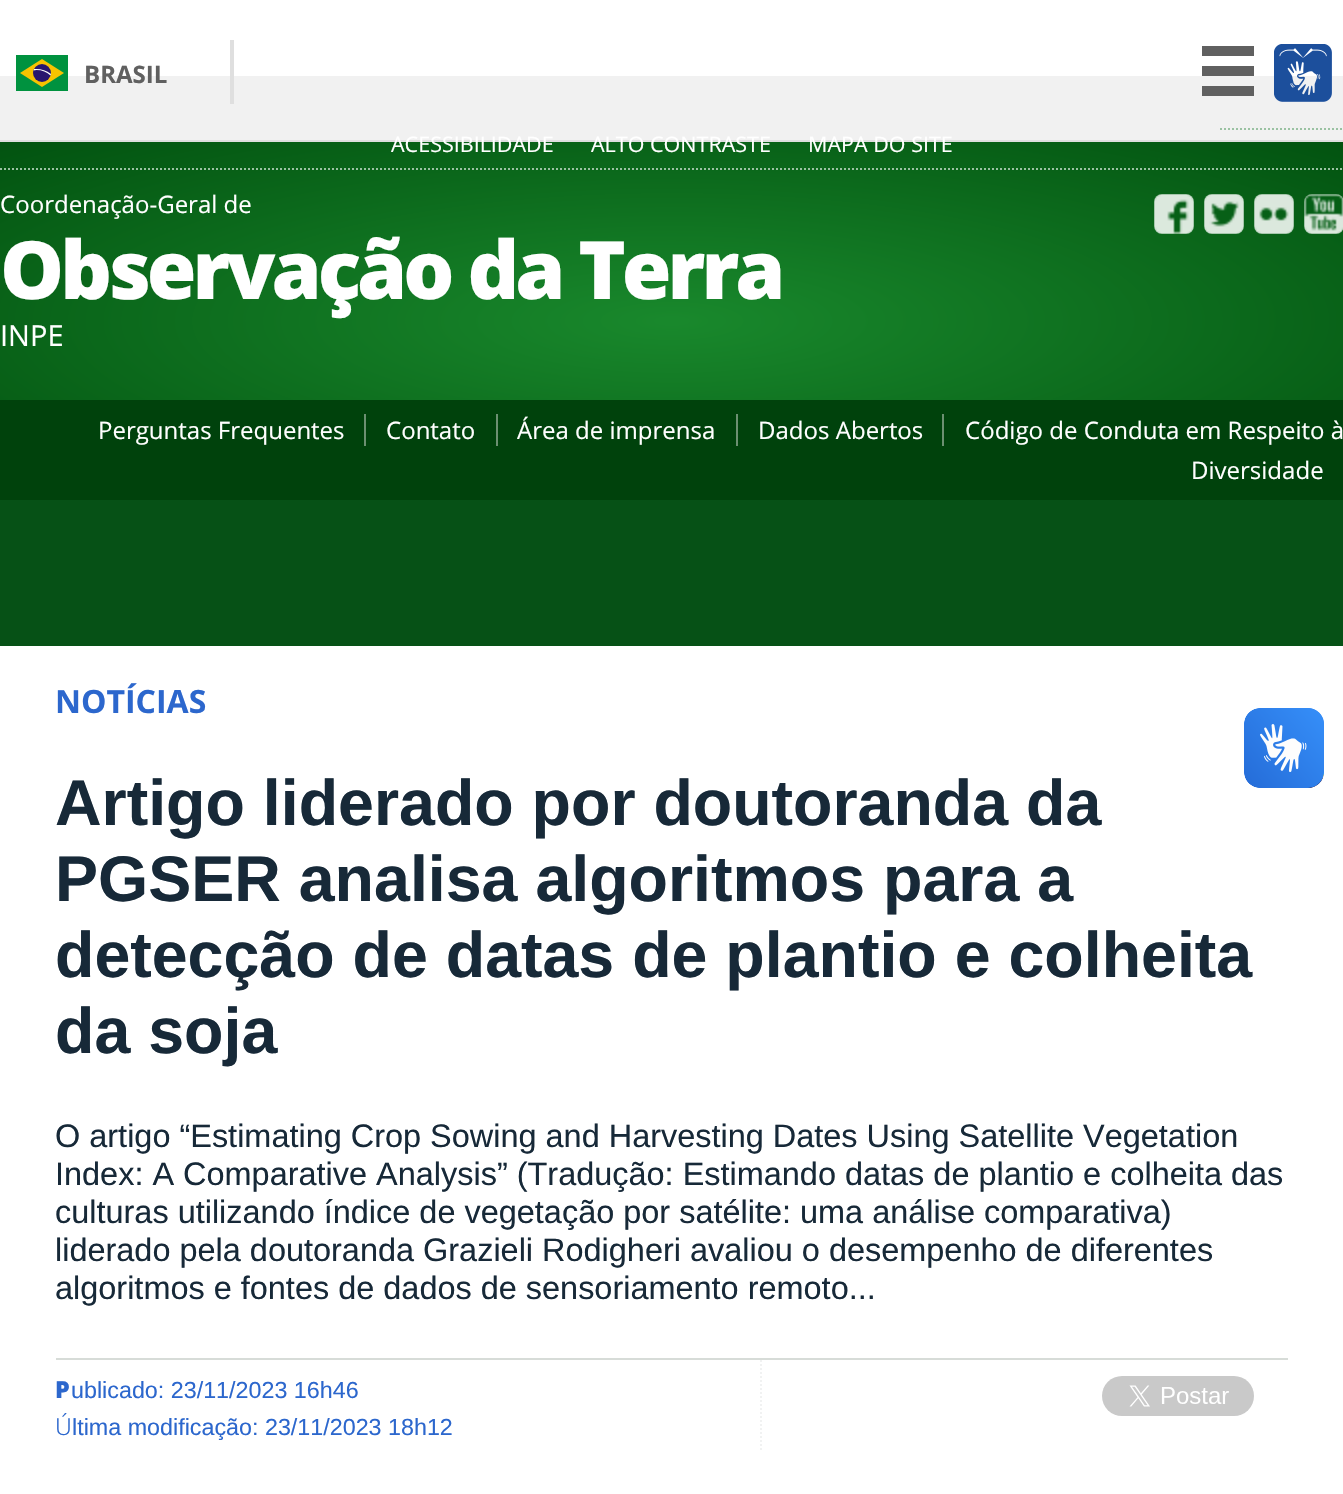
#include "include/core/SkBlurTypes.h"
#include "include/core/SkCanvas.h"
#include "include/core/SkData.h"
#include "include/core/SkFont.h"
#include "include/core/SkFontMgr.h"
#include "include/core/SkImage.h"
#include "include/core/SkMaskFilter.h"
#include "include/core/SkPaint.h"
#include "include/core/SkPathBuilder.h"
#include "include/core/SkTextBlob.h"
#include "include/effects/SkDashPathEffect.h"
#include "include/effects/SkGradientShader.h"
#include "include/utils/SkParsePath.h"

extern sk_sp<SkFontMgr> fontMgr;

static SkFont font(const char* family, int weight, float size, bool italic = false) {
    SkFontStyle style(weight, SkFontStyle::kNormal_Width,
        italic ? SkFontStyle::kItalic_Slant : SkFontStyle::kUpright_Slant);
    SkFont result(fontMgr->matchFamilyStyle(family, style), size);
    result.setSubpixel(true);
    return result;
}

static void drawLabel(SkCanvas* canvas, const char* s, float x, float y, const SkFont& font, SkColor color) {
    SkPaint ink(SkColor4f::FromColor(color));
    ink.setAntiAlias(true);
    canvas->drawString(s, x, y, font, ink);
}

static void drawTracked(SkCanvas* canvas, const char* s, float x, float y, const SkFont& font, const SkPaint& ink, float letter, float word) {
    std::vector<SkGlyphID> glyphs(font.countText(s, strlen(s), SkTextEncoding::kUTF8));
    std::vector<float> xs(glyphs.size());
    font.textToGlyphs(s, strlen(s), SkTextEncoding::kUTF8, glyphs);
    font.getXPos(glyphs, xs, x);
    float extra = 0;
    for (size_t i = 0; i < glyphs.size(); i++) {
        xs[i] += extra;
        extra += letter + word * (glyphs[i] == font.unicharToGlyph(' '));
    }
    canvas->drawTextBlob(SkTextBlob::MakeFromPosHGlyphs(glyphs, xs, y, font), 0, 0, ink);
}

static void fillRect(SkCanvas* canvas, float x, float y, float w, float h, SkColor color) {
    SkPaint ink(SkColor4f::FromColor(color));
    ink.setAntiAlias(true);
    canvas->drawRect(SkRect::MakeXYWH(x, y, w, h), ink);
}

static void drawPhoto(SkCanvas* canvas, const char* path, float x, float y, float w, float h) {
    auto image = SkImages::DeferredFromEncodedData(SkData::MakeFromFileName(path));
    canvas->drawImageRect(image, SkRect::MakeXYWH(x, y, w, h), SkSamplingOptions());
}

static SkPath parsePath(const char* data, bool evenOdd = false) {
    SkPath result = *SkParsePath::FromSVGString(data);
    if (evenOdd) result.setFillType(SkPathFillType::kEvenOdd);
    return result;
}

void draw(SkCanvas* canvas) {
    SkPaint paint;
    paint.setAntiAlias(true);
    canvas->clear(0xFFFFFFFF);
    fillRect(canvas, 0, 76, 1343, 64, 0xFFF1F1F1);
    fillRect(canvas, 0, 140, 1343, 2, 0xFFDFDFDF);
    fillRect(canvas, 230, 40, 4, 64, 0xFFDFDFDF);
    fillRect(canvas, 16, 55, 52, 36, 0xFF00923F);
    paint.setColor(0xFFF8C300);
    canvas->drawPath(parsePath("M42 59L20 73L42 87L64 73Z"), paint);
    paint.setColor(0xFF28166F);
    canvas->drawCircle(42, 73, 9, paint);
    paint.setColor(0xFFFFFFFF);
    canvas->drawPath(parsePath("M36.5 70C42 70 47 72 50.5 75.5L51 74C46 70 40 68.5 34 69L33.5 70.5Z"), paint);
    SkFont font1 = font("Open Sans", 700, 24);
    drawLabel(canvas, "BRASIL", 84, 83, font1, 0xFF606060);
    fillRect(canvas, 1202, 46, 52, 10, 0xFF606060);
    fillRect(canvas, 1202, 66, 52, 10, 0xFF606060);
    fillRect(canvas, 1202, 86, 52, 10, 0xFF606060);
    drawPhoto(canvas, "assets/img1.png", 1274, 44, 58, 58);
    paint.setStroke(true);
    paint.setStrokeWidth(2);
    paint.setColor(0xFF9BC2A3);
    paint.setPathEffect(SkDashPathEffect::Make({{2, 2}}, 0));
    canvas->drawPath(parsePath("M1220 129H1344"), paint);
    paint.setPathEffect(nullptr);
    paint.setStroke(false);
    {
        const SkColor colors[] = {0xFF19882C, 0xFF025310};
        const float stops[] = {0.01f, 1};
        SkMatrix m = SkMatrix::Translate(672, 321).preScale(950, 253);
        paint.setShader(SkGradientShader::MakeRadial({0, 0}, 1, colors, stops, 2, SkTileMode::kClamp, 0, &m));
        paint.setAlpha(255);
    }
    canvas->drawRect(SkRect::MakeXYWH(0, 142, 1343, 258), paint);
    paint.setStroke(true);
    paint.setShader(nullptr);
    paint.setColor(0xFF9BC2A3);
    paint.setPathEffect(SkDashPathEffect::Make({{2, 2}}, 0));
    canvas->drawPath(parsePath("M0 169H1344"), paint);
    paint.setPathEffect(nullptr);
    SkFont font2 = font("Open Sans", 400, 21.5f);
    drawLabel(canvas, "ACESSIBILIDADE", 391, 152, font2, 0xFFFFFFFF);
    drawLabel(canvas, "ALTO CONTRASTE", 591, 152, font2, 0xFFFFFFFF);
    drawLabel(canvas, "MAPA DO SITE", 808, 152, font2, 0xFFFFFFFF);
    SkFont font3 = font("Open Sans", 400, 24);
    drawLabel(canvas, "Coordenação-Geral de", 0, 213, font3, 0xFFFFFFFF);
    SkFont font4 = font("Open Sans", 800, 80.5f);
    paint.setStroke(false);
    paint.setColor(0xFFFFFFFF);
    drawTracked(canvas, "Observação da Terra", 0, 299, font4, paint, -4, 0);
    SkFont font5 = font("Open Sans", 400, 29);
    drawLabel(canvas, "INPE", 0, 346, font5, 0xFFFFFFFF);
    drawPhoto(canvas, "assets/img2.png", 1154, 194, 40, 40);
    drawPhoto(canvas, "assets/img3.png", 1204, 194, 40, 40);
    drawPhoto(canvas, "assets/img4.png", 1254, 194, 40, 40);
    drawPhoto(canvas, "assets/img5.png", 1304, 194, 39, 40);
    fillRect(canvas, 0, 400, 1343, 100, 0xFF00420C);
    drawLabel(canvas, "Perguntas Frequentes", 98, 439, font3, 0xFFFFFFFF);
    fillRect(canvas, 364, 414, 2, 32, 0xFF6C9072);
    drawLabel(canvas, "Contato", 386, 439, font3, 0xFFFFFFFF);
    fillRect(canvas, 496, 414, 2, 32, 0xFF6C9072);
    drawLabel(canvas, "Área de imprensa", 517, 439, font3, 0xFFFFFFFF);
    fillRect(canvas, 736, 414, 2, 32, 0xFF6C9072);
    drawLabel(canvas, "Dados Abertos", 758, 439, font3, 0xFFFFFFFF);
    fillRect(canvas, 942, 414, 2, 32, 0xFF6C9072);
    drawLabel(canvas, "Código de Conduta em Respeito à", 965, 439, font3, 0xFFFFFFFF);
    drawLabel(canvas, "Diversidade", 1191, 479, font3, 0xFFFFFFFF);
    fillRect(canvas, 0, 500, 1343, 146, 0xFF065116);
    SkFont font6 = font("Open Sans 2", 700, 32);
    drawLabel(canvas, "NOTÍCIAS", 55, 713, font6, 0xFF2C67CD);
    SkFont font7 = font("Liberation Sans", 700, 64.5f);
    drawLabel(canvas, "Artigo liderado por doutoranda da", 55, 825, font7, 0xFF172938);
    drawLabel(canvas, "PGSER analisa algoritmos para a", 55, 901, font7, 0xFF172938);
    drawLabel(canvas, "detecção de datas de plantio e colheita", 55, 977, font7, 0xFF172938);
    drawLabel(canvas, "da soja", 55, 1053, font7, 0xFF172938);
    fillRect(canvas, 56, 1358, 1232, 2, 0xFFD7DCD8);
    SkFont font8 = font("Liberation Sans", 400, 32.45f);
    drawLabel(canvas, "O artigo “Estimating Crop Sowing and Harvesting Dates Using Satellite Vegetation", 55, 1147, font8, 0xFF172938);
    drawLabel(canvas, "Index: A Comparative Analysis” (Tradução: Estimando datas de plantio e colheita das", 55, 1185, font8, 0xFF172938);
    drawLabel(canvas, "culturas utilizando índice de vegetação por satélite: uma análise comparativa)", 55, 1223, font8, 0xFF172938);
    drawLabel(canvas, "liderado pela doutoranda Grazieli Rodigheri avaliou o desempenho de diferentes", 55, 1261, font8, 0xFF172938);
    drawLabel(canvas, "algoritmos e fontes de dados de sensoriamento remoto...", 55, 1299, font8, 0xFF172938);
    SkFont font9 = font("Noto Sans", 900, 23.3f);
    drawLabel(canvas, "P", 55, 1398, font9, 0xFF2C67CD);
    SkFont font10 = font("Liberation Sans", 400, 23.3f);
    drawLabel(canvas, "ublicado: 23/11/2023 16h46", 71, 1398, font10, 0xFF2C67CD);
    SkFont font11 = font("Noto Sans", 300, 23.3f);
    drawLabel(canvas, "Ú", 55, 1435, font11, 0xFF2C67CD);
    drawLabel(canvas, "ltima modificação: 23/11/2023 18h12", 72, 1435, font10, 0xFF2C67CD);
    paint.setStroke(true);
    paint.setColor(0xFFF1F2F2);
    paint.setPathEffect(SkDashPathEffect::Make({{2, 2}}, 0));
    canvas->drawPath(parsePath("M761 1360V1450"), paint);
    paint.setPathEffect(nullptr);
    drawPhoto(canvas, "assets/img6.png", 1102, 1376, 152, 40);
    drawPhoto(canvas, "assets/img7.png", 1244, 708, 80, 80);
    drawPhoto(canvas, "assets/img8.png", 1244, 708, 80, 80);
}
